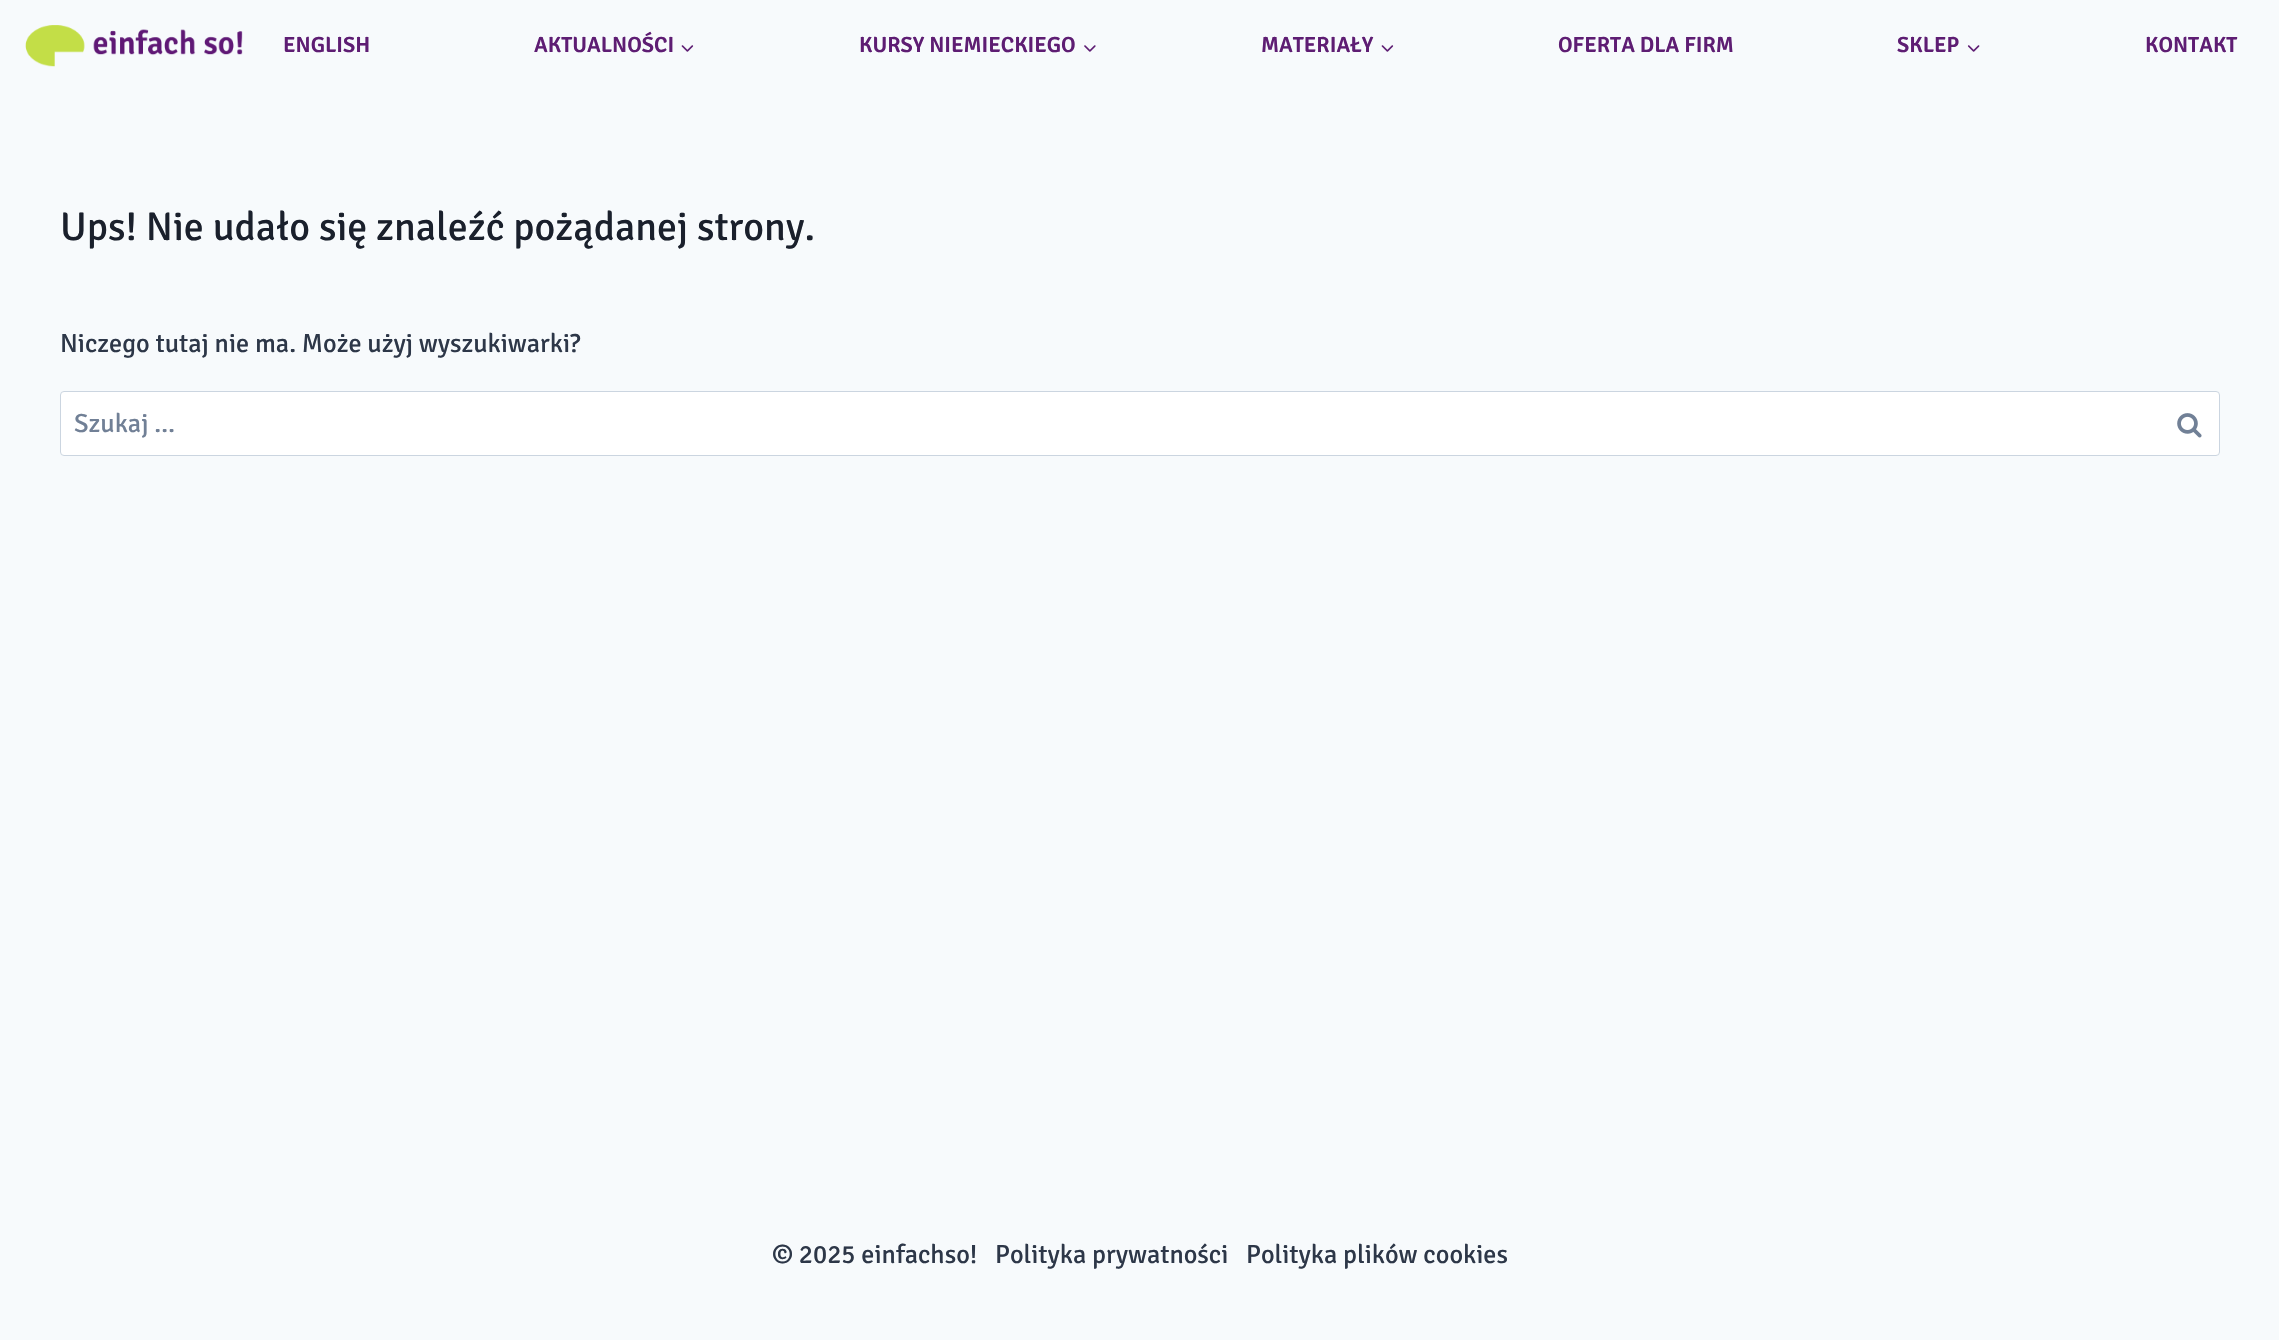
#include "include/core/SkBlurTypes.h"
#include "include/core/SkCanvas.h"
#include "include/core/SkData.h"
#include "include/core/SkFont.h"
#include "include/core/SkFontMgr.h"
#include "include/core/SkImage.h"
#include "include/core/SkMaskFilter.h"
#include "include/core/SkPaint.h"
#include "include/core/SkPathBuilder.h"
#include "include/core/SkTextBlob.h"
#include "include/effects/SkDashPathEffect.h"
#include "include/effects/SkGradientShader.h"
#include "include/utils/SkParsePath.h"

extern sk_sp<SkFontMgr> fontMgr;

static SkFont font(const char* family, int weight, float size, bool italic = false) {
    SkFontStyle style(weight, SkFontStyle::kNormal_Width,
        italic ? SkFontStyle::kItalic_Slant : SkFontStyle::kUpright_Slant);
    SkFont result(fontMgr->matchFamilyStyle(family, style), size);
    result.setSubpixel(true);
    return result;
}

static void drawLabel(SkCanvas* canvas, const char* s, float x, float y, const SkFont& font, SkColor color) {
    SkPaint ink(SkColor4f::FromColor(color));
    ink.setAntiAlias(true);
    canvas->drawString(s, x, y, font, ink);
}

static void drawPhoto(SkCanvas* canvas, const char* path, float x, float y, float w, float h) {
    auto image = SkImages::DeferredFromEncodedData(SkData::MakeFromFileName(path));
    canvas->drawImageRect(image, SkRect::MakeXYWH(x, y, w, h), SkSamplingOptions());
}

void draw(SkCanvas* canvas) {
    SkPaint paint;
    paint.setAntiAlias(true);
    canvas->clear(0xFFF7FAFC);
    drawPhoto(canvas, "assets/img1.png", 25, 25, 218, 42);
    SkFont font1 = font("Signika", 600, 22);
    drawLabel(canvas, "ENGLISH", 283, 52, font1, 0xFF5E1D73);
    drawLabel(canvas, "AKTUALNOŚCI", 534, 52, font1, 0xFF5E1D73);
    drawPhoto(canvas, "assets/img2.png", 681, 45, 13, 7);
    drawLabel(canvas, "KURSY NIEMIECKIEGO", 859, 52, font1, 0xFF5E1D73);
    drawPhoto(canvas, "assets/img3.png", 1084, 45, 12, 7);
    drawLabel(canvas, "MATERIAŁY", 1261, 52, font1, 0xFF5E1D73);
    drawPhoto(canvas, "assets/img2.png", 1381, 45, 13, 7);
    drawLabel(canvas, "OFERTA DLA FIRM", 1558, 52, font1, 0xFF5E1D73);
    drawLabel(canvas, "SKLEP", 1897, 52, font1, 0xFF5E1D73);
    drawPhoto(canvas, "assets/img4.png", 1967, 45, 13, 7);
    drawLabel(canvas, "KONTAKT", 2145, 52, font1, 0xFF5E1D73);
    SkFont font2 = font("Signika", 400, 40);
    drawLabel(canvas, "Ups! Nie udało się znaleźć pożądanej strony.", 60, 240, font2, 0xFF1A202C);
    SkFont font3 = font("Signika", 400, 26.25f);
    drawLabel(canvas, "Niczego tutaj nie ma. Może użyj wyszukiwarki?", 60, 352, font3, 0xFF2D3748);
    paint.setColor(0xFFFFFFFF);
    canvas->drawRoundRect(SkRect::MakeXYWH(60.5f, 391.5f, 2159, 64), 3.5f, 3.5f, paint);
    paint.setStroke(true);
    paint.setStrokeWidth(1);
    paint.setColor(0xFFCBD5E0);
    canvas->drawRoundRect(SkRect::MakeXYWH(60.5f, 391.5f, 2159, 64), 3.5f, 3.5f, paint);
    drawLabel(canvas, "Szukaj …", 74, 432, font3, 0xFF718096);
    drawPhoto(canvas, "assets/img5.png", 2177, 413, 25, 25);
    drawLabel(canvas, "© 2025 einfachso!", 772, 1263, font3, 0xFF2D3748);
    drawLabel(canvas, "Polityka prywatności", 995, 1263, font3, 0xFF2D3748);
    drawLabel(canvas, "Polityka plików cookies", 1246, 1263, font3, 0xFF2D3748);
}
